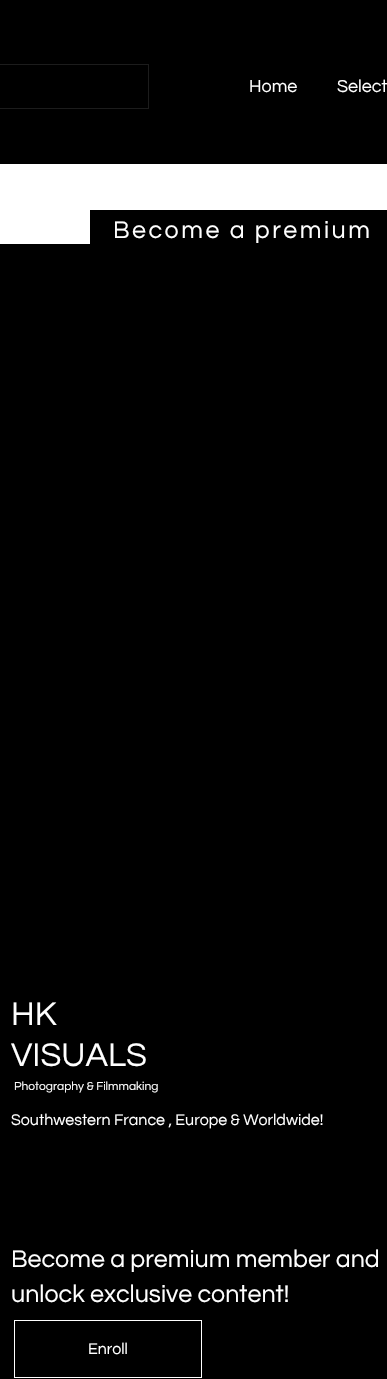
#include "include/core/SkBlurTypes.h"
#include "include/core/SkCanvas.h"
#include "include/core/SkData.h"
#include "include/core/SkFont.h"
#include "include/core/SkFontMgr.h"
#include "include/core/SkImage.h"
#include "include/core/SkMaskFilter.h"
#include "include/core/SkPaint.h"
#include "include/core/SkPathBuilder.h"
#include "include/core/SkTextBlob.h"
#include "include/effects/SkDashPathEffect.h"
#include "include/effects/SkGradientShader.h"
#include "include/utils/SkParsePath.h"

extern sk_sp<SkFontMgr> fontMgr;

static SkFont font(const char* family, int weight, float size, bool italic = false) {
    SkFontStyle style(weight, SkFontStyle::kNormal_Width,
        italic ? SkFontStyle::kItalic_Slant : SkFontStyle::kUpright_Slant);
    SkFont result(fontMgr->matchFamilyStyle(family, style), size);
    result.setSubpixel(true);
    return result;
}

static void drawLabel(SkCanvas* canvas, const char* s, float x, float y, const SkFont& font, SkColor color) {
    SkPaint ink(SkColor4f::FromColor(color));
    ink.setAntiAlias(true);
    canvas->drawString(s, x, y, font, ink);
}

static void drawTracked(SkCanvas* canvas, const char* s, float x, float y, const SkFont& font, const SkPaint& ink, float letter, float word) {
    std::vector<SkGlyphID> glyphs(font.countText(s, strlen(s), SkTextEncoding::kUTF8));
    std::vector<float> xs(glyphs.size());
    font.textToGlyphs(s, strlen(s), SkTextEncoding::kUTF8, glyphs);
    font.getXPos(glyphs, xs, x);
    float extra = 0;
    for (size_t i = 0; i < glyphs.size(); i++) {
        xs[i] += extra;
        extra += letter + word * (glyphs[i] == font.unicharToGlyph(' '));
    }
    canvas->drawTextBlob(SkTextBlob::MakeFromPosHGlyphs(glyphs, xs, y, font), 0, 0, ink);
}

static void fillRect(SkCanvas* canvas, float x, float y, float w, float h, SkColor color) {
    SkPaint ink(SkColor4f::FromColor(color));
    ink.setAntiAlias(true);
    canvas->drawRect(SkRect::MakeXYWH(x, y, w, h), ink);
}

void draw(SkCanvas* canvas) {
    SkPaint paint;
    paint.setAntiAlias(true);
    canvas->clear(0xFF000000);
    paint.setStroke(true);
    paint.setStrokeWidth(1);
    paint.setColor(0xFF1C1C1C);
    canvas->drawRect(SkRect::MakeXYWH(-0.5f, 64.5f, 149, 44), paint);
    SkFont font1 = font("Questrial", 400, 18);
    drawLabel(canvas, "Home", 249, 92, font1, 0xFFFFFFFF);
    drawLabel(canvas, "Select", 337, 92, font1, 0xFFFFFFFF);
    fillRect(canvas, 0, 164, 387, 80, 0xFFFFFFFF);
    fillRect(canvas, 90, 210, 297, 34, 0xFF000000);
    SkFont font2 = font("Questrial", 400, 25);
    paint.setStroke(false);
    paint.setColor(0xFFFFFFFF);
    drawTracked(canvas, "Become a premium", 113, 238, font2, paint, 2.5f, 0);
    SkFont font3 = font("Questrial", 400, 34);
    drawLabel(canvas, "HK", 11, 1025, font3, 0xFFFFFFFF);
    drawLabel(canvas, "VISUALS", 11, 1066, font3, 0xFFFFFFFF);
    SkFont font4 = font("Questrial", 400, 12);
    drawLabel(canvas, "Photography & Filmmaking", 14, 1090, font4, 0xFFFFFFFF);
    SkFont font5 = font("Questrial", 400, 16);
    drawLabel(canvas, "Southwestern France , Europe & Worldwide!", 11, 1125, font5, 0xFFFFFFFF);
    drawLabel(canvas, "Become a premium member and", 11, 1267, font2, 0xFFFFFFFF);
    drawLabel(canvas, "unlock exclusive content!", 11, 1302, font2, 0xFFFFFFFF);
    paint.setStroke(true);
    canvas->drawRect(SkRect::MakeXYWH(14.5f, 1320.5f, 187, 57), paint);
    drawLabel(canvas, "Enroll", 88, 1354, font5, 0xFFFFFFFF);
}
